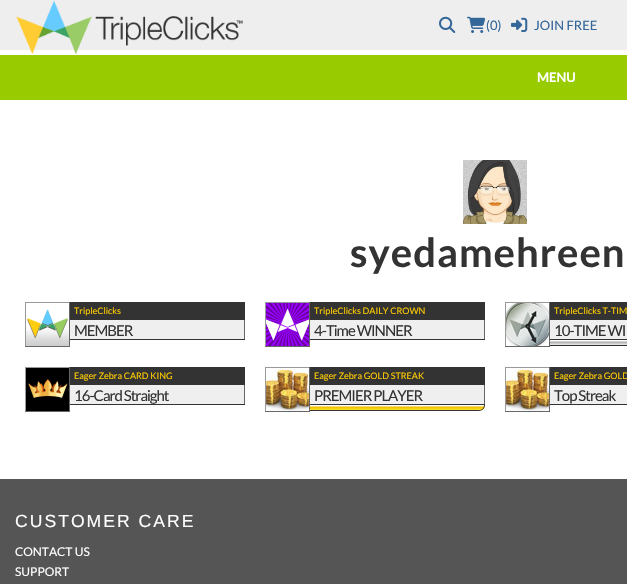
#include "include/core/SkBlurTypes.h"
#include "include/core/SkCanvas.h"
#include "include/core/SkData.h"
#include "include/core/SkFont.h"
#include "include/core/SkFontMgr.h"
#include "include/core/SkImage.h"
#include "include/core/SkMaskFilter.h"
#include "include/core/SkPaint.h"
#include "include/core/SkPathBuilder.h"
#include "include/core/SkTextBlob.h"
#include "include/effects/SkDashPathEffect.h"
#include "include/effects/SkGradientShader.h"
#include "include/utils/SkParsePath.h"

extern sk_sp<SkFontMgr> fontMgr;

static SkFont font(const char* family, int weight, float size, bool italic = false) {
    SkFontStyle style(weight, SkFontStyle::kNormal_Width,
        italic ? SkFontStyle::kItalic_Slant : SkFontStyle::kUpright_Slant);
    SkFont result(fontMgr->matchFamilyStyle(family, style), size);
    result.setSubpixel(true);
    return result;
}

static void drawLabel(SkCanvas* canvas, const char* s, float x, float y, const SkFont& font, SkColor color) {
    SkPaint ink(SkColor4f::FromColor(color));
    ink.setAntiAlias(true);
    canvas->drawString(s, x, y, font, ink);
}

static void drawTracked(SkCanvas* canvas, const char* s, float x, float y, const SkFont& font, const SkPaint& ink, float letter, float word) {
    std::vector<SkGlyphID> glyphs(font.countText(s, strlen(s), SkTextEncoding::kUTF8));
    std::vector<float> xs(glyphs.size());
    font.textToGlyphs(s, strlen(s), SkTextEncoding::kUTF8, glyphs);
    font.getXPos(glyphs, xs, x);
    float extra = 0;
    for (size_t i = 0; i < glyphs.size(); i++) {
        xs[i] += extra;
        extra += letter + word * (glyphs[i] == font.unicharToGlyph(' '));
    }
    canvas->drawTextBlob(SkTextBlob::MakeFromPosHGlyphs(glyphs, xs, y, font), 0, 0, ink);
}

static void fillRect(SkCanvas* canvas, float x, float y, float w, float h, SkColor color) {
    SkPaint ink(SkColor4f::FromColor(color));
    ink.setAntiAlias(true);
    canvas->drawRect(SkRect::MakeXYWH(x, y, w, h), ink);
}

static void drawPhoto(SkCanvas* canvas, const char* path, float x, float y, float w, float h) {
    auto image = SkImages::DeferredFromEncodedData(SkData::MakeFromFileName(path));
    canvas->drawImageRect(image, SkRect::MakeXYWH(x, y, w, h), SkSamplingOptions());
}

static SkPath parsePath(const char* data, bool evenOdd = false) {
    SkPath result = *SkParsePath::FromSVGString(data);
    if (evenOdd) result.setFillType(SkPathFillType::kEvenOdd);
    return result;
}

void draw(SkCanvas* canvas) {
    SkPaint paint;
    paint.setAntiAlias(true);
    canvas->clear(0xFFFFFFFF);
    fillRect(canvas, 0, 0, 627, 50, 0xFFEEEEEE);
    drawPhoto(canvas, "assets/img1.png", 15, 0, 228, 55);
    drawPhoto(canvas, "assets/img2.png", 439, 16, 17, 17);
    drawPhoto(canvas, "assets/img3.png", 467, 16, 19, 17);
    SkFont font1 = font("Lato", 400, 13);
    drawLabel(canvas, "(0)", 486, 30, font1, 0xFF346699);
    drawPhoto(canvas, "assets/img4.png", 511, 17, 17, 15);
    drawLabel(canvas, "JOIN FREE", 534, 30, font1, 0xFF346699);
    fillRect(canvas, 0, 55, 627, 45, 0xFF99CC00);
    SkFont font2 = font("Lato", 700, 13);
    drawLabel(canvas, "MENU", 537, 82, font2, 0xFFFFFFFF);
    drawPhoto(canvas, "assets/img5.png", 463, 160, 64, 64);
    SkFont font3 = font("Lato", 700, 40);
    paint.setColor(0xFF333333);
    drawTracked(canvas, "syedamehreen", 350, 267, font3, paint, 1, 0);
    drawPhoto(canvas, "assets/img6.png", 25, 302, 45, 45);
    fillRect(canvas, 70, 302, 175, 18, 0xFF333333);
    SkFont font4 = font("Lato", 400, 9);
    drawLabel(canvas, "TripleClicks", 74, 314, font4, 0xFFFFCC00);
    fillRect(canvas, 70, 320, 174, 19, 0xFFEFEFEF);
    fillRect(canvas, 244, 320, 1, 20, 0xFF666666);
    fillRect(canvas, 70, 339, 175, 1, 0xFF333333);
    SkFont font5 = font("Lato", 400, 15);
    drawTracked(canvas, "MEMBER", 74, 336, font5, paint, -1, 0);
    drawPhoto(canvas, "assets/img7.png", 265, 302, 45, 45);
    fillRect(canvas, 310, 302, 175, 18, 0xFF333333);
    drawLabel(canvas, "TripleClicks DAILY CROWN", 314, 314, font4, 0xFFFFCC00);
    fillRect(canvas, 310, 320, 174, 19, 0xFFEFEFEF);
    fillRect(canvas, 484, 320, 1, 20, 0xFF666666);
    fillRect(canvas, 310, 339, 175, 1, 0xFF333333);
    drawTracked(canvas, "4-Time WINNER", 314, 336, font5, paint, -1, 0);
    canvas->drawPath(parsePath("M505 340H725C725 343 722 346 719 346H505ZM505 340H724C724 343 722 345 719 345H505Z", true), paint);
    drawPhoto(canvas, "assets/img8.png", 505, 302, 45, 45);
    fillRect(canvas, 550, 302, 77, 18, 0xFF333333);
    drawLabel(canvas, "TripleClicks T-TIM", 554, 314, font4, 0xFFFFCC00);
    fillRect(canvas, 550, 320, 77, 19, 0xFFEFEFEF);
    fillRect(canvas, 550, 339, 77, 1, 0xFF333333);
    drawTracked(canvas, "10-TIME WI", 554, 336, font5, paint, -1, 0);
    {
        const SkColor colors[] = {0xFFFFFFFF, 0xFFAFAFAF, 0xFFEDEDED};
        const float stops[] = {0.1f, 0.45f, 1};
        const SkPoint ends[] = {{615, 340}, {615, 345}};
        paint.setShader(SkGradientShader::MakeLinear(ends, colors, stops, 3, SkTileMode::kClamp));
        paint.setAlpha(255);
    }
    canvas->drawRect(SkRect::MakeXYWH(550, 341, 77, 4), paint);
    drawPhoto(canvas, "assets/img9.png", 25, 367, 45, 45);
    fillRect(canvas, 70, 367, 175, 18, 0xFF333333);
    drawLabel(canvas, "Eager Zebra CARD KING", 74, 379, font4, 0xFFFFCC00);
    fillRect(canvas, 70, 385, 174, 19, 0xFFEFEFEF);
    fillRect(canvas, 244, 385, 1, 20, 0xFF666666);
    fillRect(canvas, 70, 404, 175, 1, 0xFF333333);
    paint.setShader(nullptr);
    paint.setColor(0xFF333333);
    drawTracked(canvas, "16-Card Straight", 74, 401, font5, paint, -1, 0);
    canvas->save();
    canvas->clipPath(parsePath("M265 405H485C485 408.5 482.5 411 479 411H265Z"), true);
    {
        const SkColor colors[] = {0xFFFFFFFF, 0xFFF2BD00, 0xFFF9E52C};
        const float stops[] = {0.1f, 0.45f, 1};
        const SkPoint ends[] = {{375, 405}, {375, 410}};
        paint.setShader(SkGradientShader::MakeLinear(ends, colors, stops, 3, SkTileMode::kClamp));
        paint.setAlpha(255);
    }
    canvas->drawRect(SkRect::MakeXYWH(310, 405, 175, 5), paint);
    canvas->restore();
    paint.setShader(nullptr);
    paint.setColor(0xFF333333);
    canvas->drawPath(parsePath("M265 405H485C485 408 482 411 479 411H265ZM265 405H484C484 408 482 410 479 410H265Z", true), paint);
    drawPhoto(canvas, "assets/img10.png", 265, 367, 45, 45);
    fillRect(canvas, 310, 367, 175, 18, 0xFF333333);
    drawLabel(canvas, "Eager Zebra GOLD STREAK", 314, 379, font4, 0xFFFFCC00);
    fillRect(canvas, 310, 385, 174, 19, 0xFFEFEFEF);
    fillRect(canvas, 484, 385, 1, 20, 0xFF666666);
    fillRect(canvas, 310, 404, 175, 1, 0xFF333333);
    drawTracked(canvas, "PREMIER PLAYER", 314, 401, font5, paint, -1, 0);
    drawPhoto(canvas, "assets/img10.png", 505, 367, 45, 45);
    fillRect(canvas, 550, 367, 77, 18, 0xFF333333);
    drawLabel(canvas, "Eager Zebra GOLD", 554, 379, font4, 0xFFFFCC00);
    fillRect(canvas, 550, 385, 77, 19, 0xFFEFEFEF);
    fillRect(canvas, 550, 404, 77, 1, 0xFF333333);
    drawTracked(canvas, "Top Streak", 554, 401, font5, paint, -1, 0);
    fillRect(canvas, 0, 479, 627, 105, 0xFF555555);
    SkFont font6 = font("Liberation Sans", 400, 17.6f);
    paint.setColor(0xFFFFFFFF);
    drawTracked(canvas, "CUSTOMER CARE", 15, 527, font6, paint, 2, 0);
    SkFont font7 = font("Lato", 400, 12);
    drawLabel(canvas, "CONTACT US", 15, 556, font7, 0xFFFFFFFF);
    drawLabel(canvas, "SUPPORT", 15, 576, font7, 0xFFFFFFFF);
}
